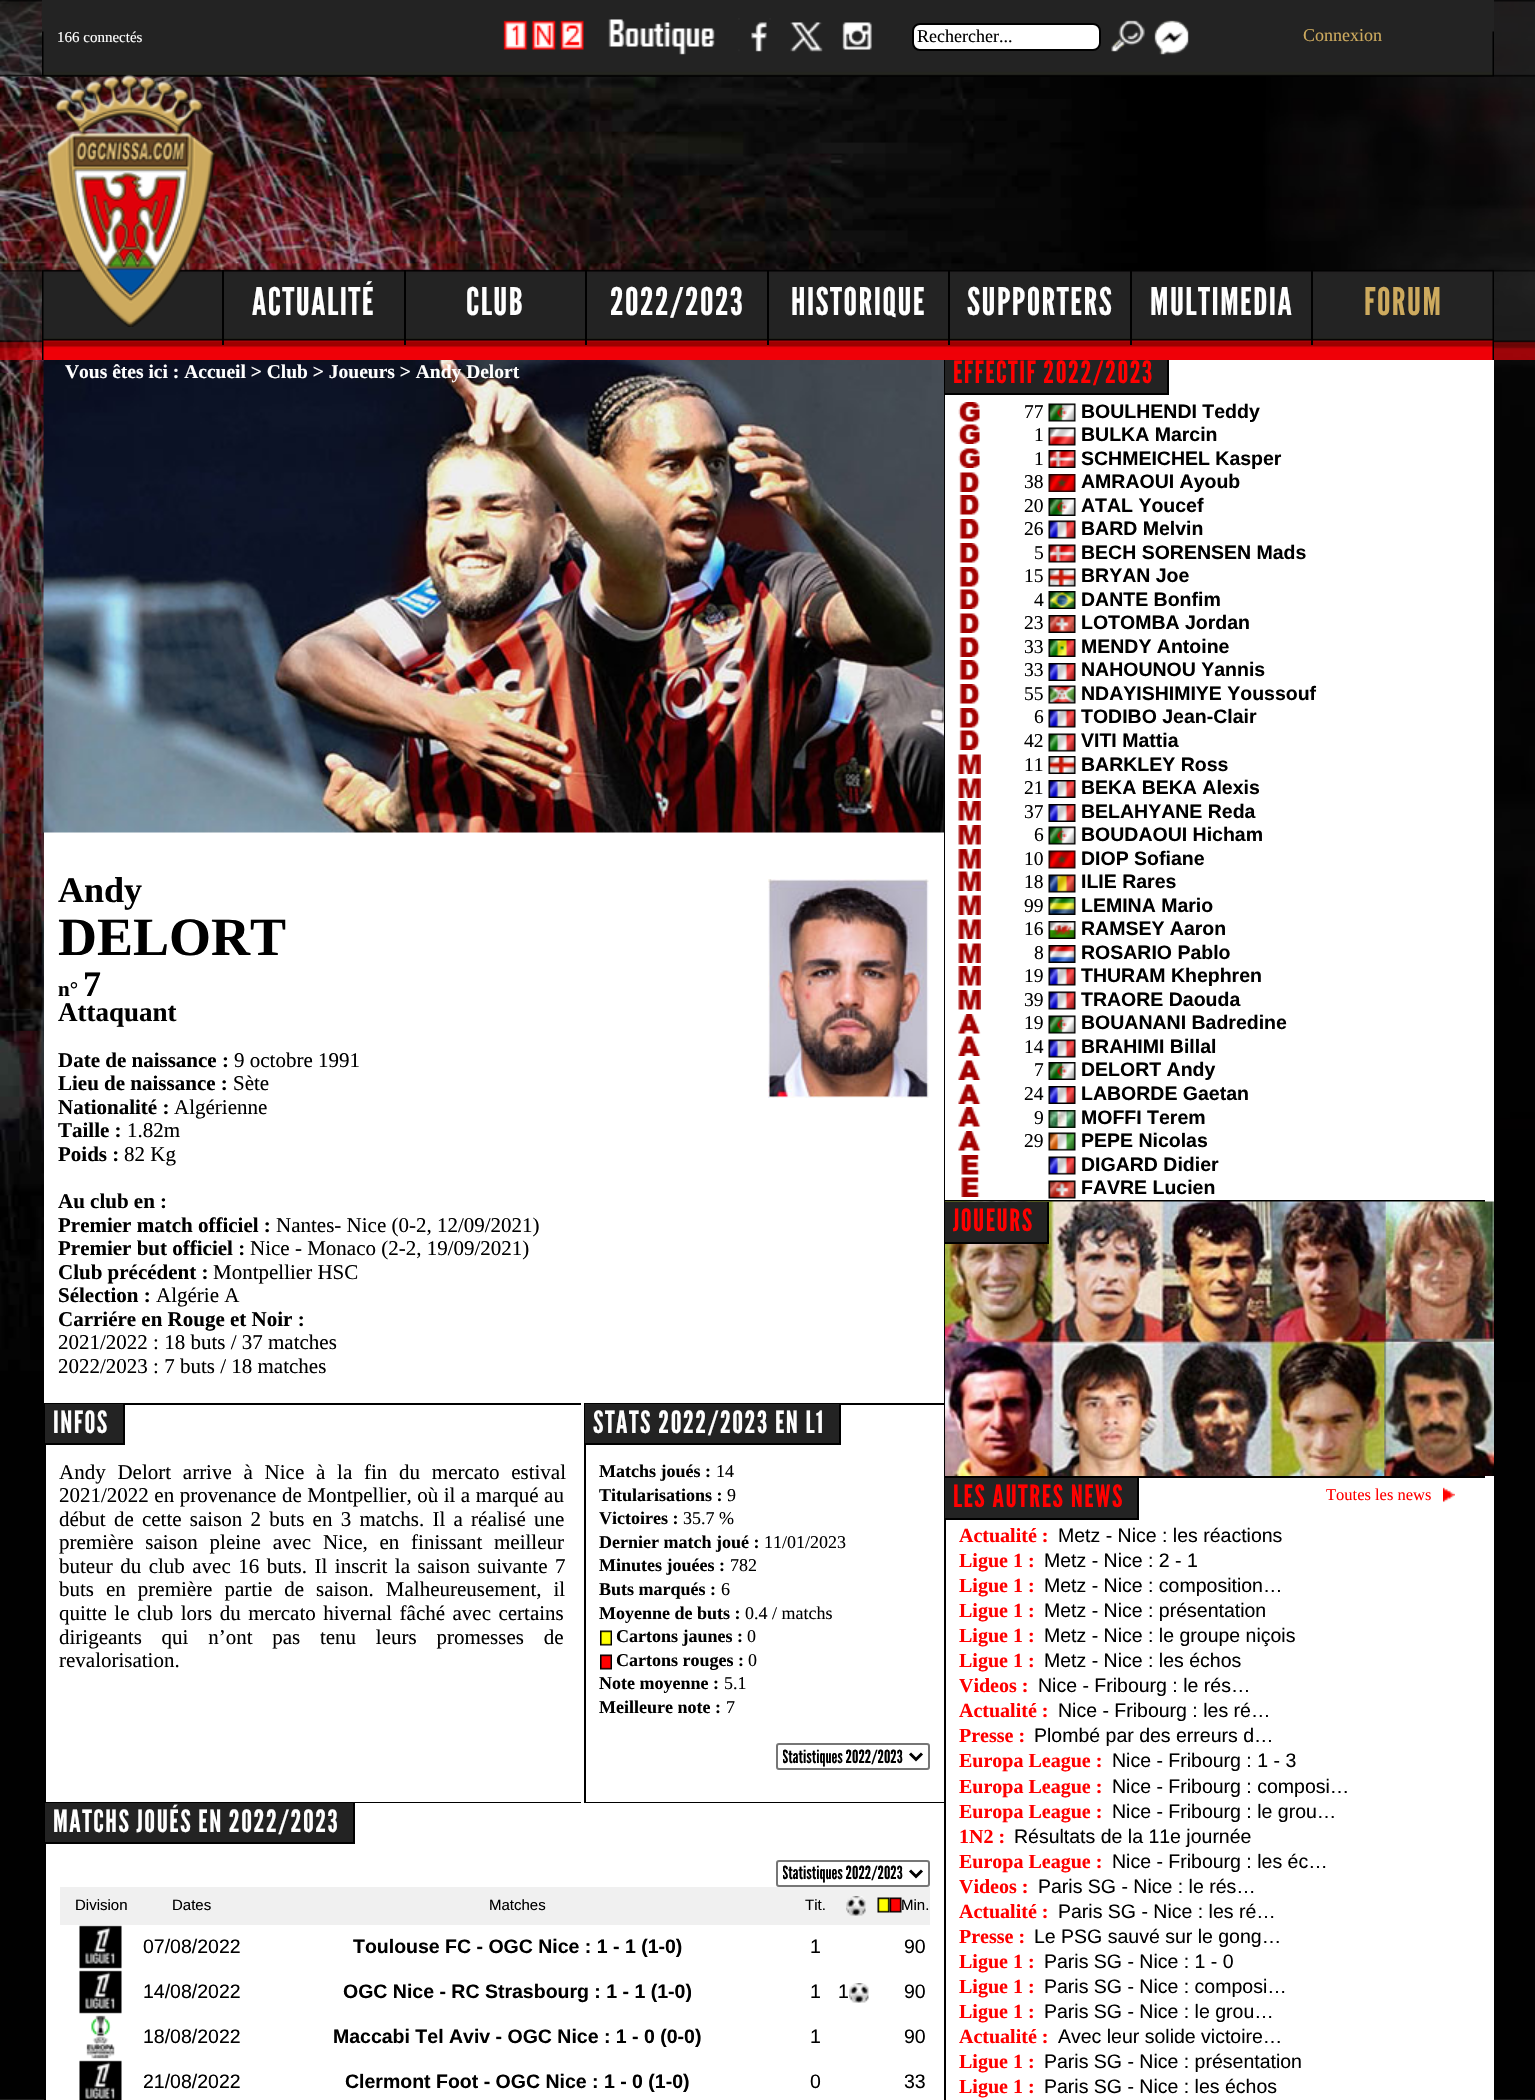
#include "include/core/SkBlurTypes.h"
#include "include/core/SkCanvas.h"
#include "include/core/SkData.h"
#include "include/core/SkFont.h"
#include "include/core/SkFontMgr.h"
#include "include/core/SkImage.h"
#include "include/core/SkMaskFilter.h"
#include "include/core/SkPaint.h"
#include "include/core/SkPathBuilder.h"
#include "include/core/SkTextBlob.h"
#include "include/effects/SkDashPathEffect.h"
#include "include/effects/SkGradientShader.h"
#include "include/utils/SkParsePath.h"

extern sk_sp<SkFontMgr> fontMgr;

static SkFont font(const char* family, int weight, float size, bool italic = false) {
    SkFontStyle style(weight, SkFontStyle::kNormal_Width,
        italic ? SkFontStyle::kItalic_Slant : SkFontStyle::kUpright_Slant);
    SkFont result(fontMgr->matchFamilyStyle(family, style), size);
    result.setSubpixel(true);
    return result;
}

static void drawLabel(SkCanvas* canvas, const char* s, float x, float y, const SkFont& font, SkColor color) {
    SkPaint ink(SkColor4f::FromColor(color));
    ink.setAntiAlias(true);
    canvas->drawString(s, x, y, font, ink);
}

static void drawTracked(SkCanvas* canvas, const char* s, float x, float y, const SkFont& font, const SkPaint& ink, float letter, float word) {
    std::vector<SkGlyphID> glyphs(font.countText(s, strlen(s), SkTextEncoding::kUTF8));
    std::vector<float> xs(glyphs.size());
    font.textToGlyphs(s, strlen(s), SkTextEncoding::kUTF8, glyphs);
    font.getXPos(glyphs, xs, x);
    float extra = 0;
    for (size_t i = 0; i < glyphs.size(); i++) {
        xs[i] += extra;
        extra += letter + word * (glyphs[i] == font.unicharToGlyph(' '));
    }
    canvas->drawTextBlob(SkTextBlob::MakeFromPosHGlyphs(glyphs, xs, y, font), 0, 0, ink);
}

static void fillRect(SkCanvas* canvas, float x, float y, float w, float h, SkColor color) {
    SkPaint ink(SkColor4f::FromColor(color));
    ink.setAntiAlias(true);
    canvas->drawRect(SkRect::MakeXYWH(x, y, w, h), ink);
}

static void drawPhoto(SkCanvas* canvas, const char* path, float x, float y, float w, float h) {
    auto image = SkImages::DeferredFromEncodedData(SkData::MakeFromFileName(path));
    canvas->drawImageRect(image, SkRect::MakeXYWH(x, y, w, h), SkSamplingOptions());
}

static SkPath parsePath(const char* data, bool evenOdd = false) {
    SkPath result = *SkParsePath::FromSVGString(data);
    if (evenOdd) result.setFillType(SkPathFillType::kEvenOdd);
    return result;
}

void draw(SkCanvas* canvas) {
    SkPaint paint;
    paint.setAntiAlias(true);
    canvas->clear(0xFFFFFFFF);
    drawPhoto(canvas, "assets/img1.png", 0, 0, 1535, 2100);
    fillRect(canvas, 44, 360, 1450, 1740, 0xFFFFFFFF);
    fillRect(canvas, 944, 1200, 541, 2, 0xFF000000);
    fillRect(canvas, 944, 353, 2, 849, 0xFF000000);
    fillRect(canvas, 1167, 353, 2, 42, 0xFF000000);
    drawPhoto(canvas, "assets/img2.png", 0, 0, 1535, 360);
    drawPhoto(canvas, "assets/img3.png", 42, 0, 1452, 360);
    SkFont font1 = font("Liberation Serif", 400, 15);
    drawLabel(canvas, "166 connectés", 57, 42, font1, 0xFFFFFFFF);
    drawPhoto(canvas, "assets/img4.png", 503, 20, 81, 30);
    drawPhoto(canvas, "assets/img5.png", 608, 19, 107, 36);
    drawPhoto(canvas, "assets/img6.png", 738, 18, 33, 34);
    drawPhoto(canvas, "assets/img7.png", 790, 22, 33, 30);
    drawPhoto(canvas, "assets/img8.png", 842, 22, 30, 28);
    paint.setColor(0xFFFFFFFF);
    canvas->drawRoundRect(SkRect::MakeXYWH(913, 24, 187, 26), 7, 7, paint);
    paint.setStroke(true);
    paint.setStrokeWidth(2);
    paint.setColor(0xFF000000);
    canvas->drawRoundRect(SkRect::MakeXYWH(913, 24, 187, 26), 7, 7, paint);
    SkFont font2 = font("Liberation Serif", 400, 18);
    drawLabel(canvas, "Rechercher...", 917, 42, font2, 0xFF000000);
    drawPhoto(canvas, "assets/img9.png", 1111, 20, 34, 32);
    drawPhoto(canvas, "assets/img10.png", 1154, 20, 35, 35);
    drawLabel(canvas, "Connexion", 1303, 41, font2, 0xFFCDAA5E);
    drawPhoto(canvas, "assets/img11.png", 46, 74, 169, 253);
    fillRect(canvas, 222, 270, 2, 75, 0xFF000000);
    fillRect(canvas, 404, 270, 2, 75, 0xFF000000);
    SkFont font3 = font("League Gothic", 400, 38);
    paint.setStroke(false);
    paint.setColor(0xFFFFFFFF);
    drawTracked(canvas, "ACTUALITÉ", 252, 315, font3, paint, 1.5f, 0);
    fillRect(canvas, 585, 270, 2, 75, 0xFF000000);
    drawTracked(canvas, "CLUB", 466, 315, font3, paint, 1.5f, 0);
    fillRect(canvas, 767, 270, 2, 75, 0xFF000000);
    drawTracked(canvas, "2022/2023", 610, 315, font3, paint, 1.5f, 0);
    fillRect(canvas, 948, 270, 2, 75, 0xFF000000);
    drawTracked(canvas, "HISTORIQUE", 791, 315, font3, paint, 1.5f, 0);
    fillRect(canvas, 1130, 270, 2, 75, 0xFF000000);
    drawTracked(canvas, "SUPPORTERS", 967, 315, font3, paint, 1.5f, 0);
    fillRect(canvas, 1311, 270, 2, 75, 0xFF000000);
    drawTracked(canvas, "MULTIMEDIA", 1150, 315, font3, paint, 1.5f, 0);
    paint.setColor(0xFFCDAA5E);
    drawTracked(canvas, "FORUM", 1364, 315, font3, paint, 1.5f, 0);
    drawPhoto(canvas, "assets/img12.png", 43, 360, 901, 473);
    SkFont font4 = font("Liberation Serif", 700, 19.5f);
    drawLabel(canvas, "Vous êtes ici : Accueil > Club > Joueurs > Andy Delort", 65, 378, font4, 0xFFFFFFFF);
    SkFont font5 = font("Liberation Serif", 700, 36);
    drawLabel(canvas, "Andy", 58, 902, font5, 0xFF000000);
    SkFont font6 = font("Liberation Serif", 700, 54);
    drawLabel(canvas, "DELORT", 58, 955, font6, 0xFF000000);
    SkFont font7 = font("Liberation Serif", 700, 21);
    drawLabel(canvas, "n°", 58, 996, font7, 0xFF000000);
    drawLabel(canvas, "7", 83, 996, font5, 0xFF000000);
    SkFont font8 = font("Liberation Serif", 700, 27);
    drawLabel(canvas, "Attaquant", 58, 1021, font8, 0xFF000000);
    drawLabel(canvas, "Date de naissance :", 58, 1067, font7, 0xFF000000);
    SkFont font9 = font("Liberation Serif", 400, 21);
    drawLabel(canvas, "9 octobre 1991", 234, 1067, font9, 0xFF000000);
    drawLabel(canvas, "Lieu de naissance :", 58, 1090, font7, 0xFF000000);
    drawLabel(canvas, "Sète", 233, 1090, font9, 0xFF000000);
    drawLabel(canvas, "Nationalité :", 58, 1114, font7, 0xFF000000);
    drawLabel(canvas, "Algérienne", 174, 1114, font9, 0xFF000000);
    drawLabel(canvas, "Taille :", 58, 1137, font7, 0xFF000000);
    drawLabel(canvas, "1.82m", 127, 1137, font9, 0xFF000000);
    drawLabel(canvas, "Poids :", 58, 1161, font7, 0xFF000000);
    drawLabel(canvas, "82 Kg", 124, 1161, font9, 0xFF000000);
    drawLabel(canvas, "Au club en :", 58, 1208, font7, 0xFF000000);
    drawLabel(canvas, "Premier match officiel :", 58, 1232, font7, 0xFF000000);
    drawLabel(canvas, "Nantes- Nice (0-2, 12/09/2021)", 276, 1232, font9, 0xFF000000);
    drawLabel(canvas, "Premier but officiel :", 58, 1255, font7, 0xFF000000);
    drawLabel(canvas, "Nice - Monaco (2-2, 19/09/2021)", 250, 1255, font9, 0xFF000000);
    drawLabel(canvas, "Club précédent :", 58, 1279, font7, 0xFF000000);
    drawLabel(canvas, "Montpellier HSC", 213, 1279, font9, 0xFF000000);
    drawLabel(canvas, "Sélection :", 58, 1302, font7, 0xFF000000);
    drawLabel(canvas, "Algérie A", 156, 1302, font9, 0xFF000000);
    drawLabel(canvas, "Carriére en Rouge et Noir :", 58, 1326, font7, 0xFF000000);
    drawLabel(canvas, "2021/2022 : 18 buts / 37 matches", 58, 1349, font9, 0xFF000000);
    drawLabel(canvas, "2022/2023 : 7 buts / 18 matches", 58, 1373, font9, 0xFF000000);
    drawPhoto(canvas, "assets/img13.png", 768, 879, 161, 219);
    fillRect(canvas, 44, 1403, 537, 2, 0xFF000000);
    fillRect(canvas, 44, 1802, 537, 1, 0xFF000000);
    fillRect(canvas, 44, 1403, 2, 697, 0xFF000000);
    fillRect(canvas, 45, 1404, 78, 39, 0xFF232323);
    fillRect(canvas, 123, 1404, 2, 41, 0xFF000000);
    fillRect(canvas, 45, 1443, 80, 2, 0xFF000000);
    SkFont font10 = font("League Gothic", 400, 30.5f);
    paint.setColor(0xFFFFFFFF);
    drawTracked(canvas, "INFOS", 53, 1433, font10, paint, 1.5f, 0);
    paint.setColor(0xFF000000);
    drawTracked(canvas, "Andy Delort arrive à Nice à la fin du mercato estival", 59, 1479, font9, paint, 0, 6.5f);
    drawTracked(canvas, "2021/2022 en provenance de Montpellier, où il a marqué au", 59, 1502, font9, paint, 0, 0.25f);
    drawTracked(canvas, "début de cette saison 2 buts en 3 matchs. Il a réalisé une", 59, 1526, font9, paint, 0, 3);
    drawTracked(canvas, "première saison pleine avec Nice, en finissant meilleur", 59, 1549, font9, paint, 0, 6.5f);
    drawTracked(canvas, "buteur du club avec 16 buts. Il inscrit la saison suivante 7", 59, 1573, font9, paint, 0, 2.25f);
    drawTracked(canvas, "buts en première partie de saison. Malheureusement, il", 59, 1596, font9, paint, 0, 6.75f);
    drawTracked(canvas, "quitte le club lors du mercato hivernal fâché avec certains", 59, 1620, font9, paint, 0, 2.25f);
    drawTracked(canvas, "dirigeants qui n’ont pas tenu leurs promesses de", 59, 1644, font9, paint, 0, 14.5f);
    drawLabel(canvas, "revalorisation.", 59, 1667, font9, 0xFF000000);
    fillRect(canvas, 584, 1403, 361, 2, 0xFF000000);
    fillRect(canvas, 584, 1802, 361, 1, 0xFF000000);
    fillRect(canvas, 584, 1403, 2, 400, 0xFF000000);
    fillRect(canvas, 585, 1404, 254, 39, 0xFF232323);
    fillRect(canvas, 839, 1404, 2, 41, 0xFF000000);
    fillRect(canvas, 585, 1443, 255, 2, 0xFF000000);
    paint.setColor(0xFFFFFFFF);
    drawTracked(canvas, "STATS 2022/2023 EN L1", 593, 1433, font10, paint, 1.5f, 0);
    SkFont font11 = font("Liberation Serif", 700, 18);
    drawLabel(canvas, "Matchs joués :", 599, 1477, font11, 0xFF000000);
    drawLabel(canvas, "14", 716, 1477, font2, 0xFF000000);
    drawLabel(canvas, "Titularisations :", 599, 1501, font11, 0xFF000000);
    drawLabel(canvas, "9", 727, 1501, font2, 0xFF000000);
    drawLabel(canvas, "Victoires :", 599, 1524, font11, 0xFF000000);
    drawLabel(canvas, "35.7 %", 683, 1524, font2, 0xFF000000);
    drawLabel(canvas, "Dernier match joué :", 599, 1548, font11, 0xFF000000);
    drawLabel(canvas, "11/01/2023", 764, 1548, font2, 0xFF000000);
    drawLabel(canvas, "Minutes jouées :", 599, 1571, font11, 0xFF000000);
    drawLabel(canvas, "782", 730, 1571, font2, 0xFF000000);
    drawLabel(canvas, "Buts marqués :", 599, 1595, font11, 0xFF000000);
    drawLabel(canvas, "6", 721, 1595, font2, 0xFF000000);
    drawLabel(canvas, "Moyenne de buts :", 599, 1619, font11, 0xFF000000);
    drawLabel(canvas, "0.4 / matchs", 745, 1619, font2, 0xFF000000);
    drawPhoto(canvas, "assets/img14.png", 600, 1630, 12, 16);
    drawLabel(canvas, "Cartons jaunes :", 616, 1642, font11, 0xFF000000);
    drawLabel(canvas, "0", 747, 1642, font2, 0xFF000000);
    drawPhoto(canvas, "assets/img15.png", 600, 1654, 12, 16);
    drawLabel(canvas, "Cartons rouges :", 616, 1666, font11, 0xFF000000);
    drawLabel(canvas, "0", 748, 1666, font2, 0xFF000000);
    drawLabel(canvas, "Note moyenne :", 599, 1689, font11, 0xFF000000);
    drawLabel(canvas, "5.1", 724, 1689, font2, 0xFF000000);
    drawLabel(canvas, "Meilleure note :", 599, 1713, font11, 0xFF000000);
    drawLabel(canvas, "7", 726, 1713, font2, 0xFF000000);
    paint.setStroke(true);
    paint.setColor(0xFF767676);
    canvas->drawRoundRect(SkRect::MakeXYWH(777, 1744, 152, 25), 2, 2, paint);
    paint.setStrokeWidth(3);
    paint.setColor(0xFF000000);
    canvas->drawPath(parsePath("M910 1753.5L916 1759.5L922 1753.5"), paint);
    canvas->save();
    canvas->clipRect(SkRect::MakeXYWH(783, 1745, 122, 24));
    SkFont font12 = font("League Gothic", 400, 18);
    drawLabel(canvas, "Statistiques 2022/2023", 782, 1763, font12, 0xFF000000);
    canvas->restore();
    fillRect(canvas, 45, 1803, 308, 39, 0xFF232323);
    fillRect(canvas, 353, 1803, 2, 41, 0xFF000000);
    fillRect(canvas, 45, 1842, 309, 2, 0xFF000000);
    paint.setStroke(false);
    paint.setColor(0xFFFFFFFF);
    drawTracked(canvas, "MATCHS JOUÉS EN 2022/2023", 53, 1832, font10, paint, 1.5f, 0);
    paint.setStroke(true);
    paint.setStrokeWidth(2);
    paint.setColor(0xFF767676);
    canvas->drawRoundRect(SkRect::MakeXYWH(777, 1861, 152, 25), 2, 2, paint);
    paint.setStrokeWidth(3);
    paint.setColor(0xFF000000);
    canvas->drawPath(parsePath("M910 1870.5L916 1876.5L922 1870.5"), paint);
    canvas->save();
    canvas->clipRect(SkRect::MakeXYWH(783, 1862, 122, 24));
    drawLabel(canvas, "Statistiques 2022/2023", 782, 1879, font12, 0xFF000000);
    canvas->restore();
    fillRect(canvas, 60, 1887, 870, 38, 0xFFF0F0F0);
    SkFont font13 = font("Liberation Sans", 400, 15);
    drawLabel(canvas, "Division", 75, 1910, font13, 0xFF000000);
    drawLabel(canvas, "Dates", 172, 1910, font13, 0xFF000000);
    drawLabel(canvas, "Matches", 489, 1910, font13, 0xFF000000);
    drawLabel(canvas, "Tit.", 805, 1910, font13, 0xFF000000);
    drawPhoto(canvas, "assets/img16.png", 846, 1896, 20, 20);
    drawPhoto(canvas, "assets/img17.png", 877, 1897, 13, 16);
    drawPhoto(canvas, "assets/img18.png", 889, 1897, 13, 16);
    drawLabel(canvas, "Min.", 901, 1910, font13, 0xFF000000);
    drawPhoto(canvas, "assets/img19.png", 79, 1925, 43, 44);
    SkFont font14 = font("Liberation Sans", 400, 19.5f);
    drawLabel(canvas, "07/08/2022", 143, 1953, font14, 0xFF000000);
    SkFont font15 = font("Liberation Sans", 700, 19.5f);
    drawLabel(canvas, "Toulouse FC - OGC Nice : 1 - 1 (1-0)", 353, 1953, font15, 0xFF000000);
    drawLabel(canvas, "1", 810, 1953, font14, 0xFF000000);
    drawLabel(canvas, "90", 904, 1953, font14, 0xFF000000);
    drawPhoto(canvas, "assets/img19.png", 79, 1970, 43, 44);
    drawLabel(canvas, "14/08/2022", 143, 1998, font14, 0xFF000000);
    drawLabel(canvas, "OGC Nice - RC Strasbourg : 1 - 1 (1-0)", 343, 1998, font15, 0xFF000000);
    drawLabel(canvas, "1", 810, 1998, font14, 0xFF000000);
    drawLabel(canvas, "1", 838, 1998, font14, 0xFF000000);
    drawPhoto(canvas, "assets/img20.png", 849, 1983, 20, 20);
    drawLabel(canvas, "90", 904, 1998, font14, 0xFF000000);
    drawPhoto(canvas, "assets/img21.png", 86, 2015, 29, 44);
    drawLabel(canvas, "18/08/2022", 143, 2043, font14, 0xFF000000);
    drawLabel(canvas, "Maccabi Tel Aviv - OGC Nice : 1 - 0 (0-0)", 333, 2043, font15, 0xFF000000);
    drawLabel(canvas, "1", 810, 2043, font14, 0xFF000000);
    drawLabel(canvas, "90", 904, 2043, font14, 0xFF000000);
    drawPhoto(canvas, "assets/img22.png", 79, 2060, 43, 40);
    drawLabel(canvas, "21/08/2022", 143, 2088, font14, 0xFF000000);
    drawLabel(canvas, "Clermont Foot - OGC Nice : 1 - 0 (1-0)", 345, 2088, font15, 0xFF000000);
    drawLabel(canvas, "0", 810, 2088, font14, 0xFF000000);
    drawLabel(canvas, "33", 904, 2088, font14, 0xFF000000);
    fillRect(canvas, 945, 360, 1, 840, 0xFFFFFFFF);
    fillRect(canvas, 945, 360, 222, 33, 0xFF232323);
    fillRect(canvas, 945, 393, 224, 2, 0xFF000000);
    paint.setStroke(false);
    paint.setColor(0xFFFF0000);
    drawTracked(canvas, "EFFECTIF 2022/2023", 953, 383, font10, paint, 1.5f, 0);
    drawPhoto(canvas, "assets/img23.png", 958, 402, 22, 20);
    SkFont font16 = font("Liberation Serif", 400, 19.5f);
    drawLabel(canvas, "77", 1024, 418, font16, 0xFF000000);
    drawPhoto(canvas, "assets/img24.png", 1048, 403, 28, 19);
    drawLabel(canvas, "BOULHENDI Teddy", 1081, 418, font15, 0xFF000000);
    drawPhoto(canvas, "assets/img25.png", 958, 424, 22, 20);
    drawLabel(canvas, "1", 1034, 441, font16, 0xFF000000);
    drawPhoto(canvas, "assets/img26.png", 1048, 427, 28, 19);
    drawLabel(canvas, "BULKA Marcin", 1081, 441, font15, 0xFF000000);
    drawPhoto(canvas, "assets/img25.png", 958, 448, 22, 20);
    drawLabel(canvas, "1", 1034, 465, font16, 0xFF000000);
    drawPhoto(canvas, "assets/img27.png", 1048, 450, 28, 18);
    drawLabel(canvas, "SCHMEICHEL Kasper", 1081, 465, font15, 0xFF000000);
    drawPhoto(canvas, "assets/img28.png", 959, 472, 21, 20);
    drawLabel(canvas, "38", 1024, 488, font16, 0xFF000000);
    drawPhoto(canvas, "assets/img29.png", 1048, 474, 28, 18);
    drawLabel(canvas, "AMRAOUI Ayoub", 1081, 488, font15, 0xFF000000);
    drawPhoto(canvas, "assets/img30.png", 959, 495, 21, 20);
    drawLabel(canvas, "20", 1024, 512, font16, 0xFF000000);
    drawPhoto(canvas, "assets/img31.png", 1048, 498, 28, 18);
    drawLabel(canvas, "ATAL Youcef", 1081, 512, font15, 0xFF000000);
    drawPhoto(canvas, "assets/img30.png", 959, 519, 21, 20);
    drawLabel(canvas, "26", 1024, 535, font16, 0xFF000000);
    drawPhoto(canvas, "assets/img32.png", 1048, 520, 28, 19);
    drawLabel(canvas, "BARD Melvin", 1081, 535, font15, 0xFF000000);
    drawPhoto(canvas, "assets/img30.png", 959, 543, 21, 20);
    drawLabel(canvas, "5", 1034, 559, font16, 0xFF000000);
    drawPhoto(canvas, "assets/img33.png", 1048, 544, 28, 19);
    drawLabel(canvas, "BECH SORENSEN Mads", 1081, 559, font15, 0xFF000000);
    drawPhoto(canvas, "assets/img30.png", 959, 567, 21, 20);
    drawLabel(canvas, "15", 1024, 582, font16, 0xFF000000);
    drawPhoto(canvas, "assets/img34.png", 1048, 568, 28, 19);
    drawLabel(canvas, "BRYAN Joe", 1081, 582, font15, 0xFF000000);
    drawPhoto(canvas, "assets/img28.png", 959, 589, 21, 20);
    drawLabel(canvas, "4", 1034, 606, font16, 0xFF000000);
    drawPhoto(canvas, "assets/img35.png", 1048, 591, 28, 18);
    drawLabel(canvas, "DANTE Bonfim", 1081, 606, font15, 0xFF000000);
    drawPhoto(canvas, "assets/img28.png", 959, 613, 21, 20);
    drawLabel(canvas, "23", 1024, 629, font16, 0xFF000000);
    drawPhoto(canvas, "assets/img36.png", 1048, 615, 28, 18);
    drawLabel(canvas, "LOTOMBA Jordan", 1081, 629, font15, 0xFF000000);
    drawPhoto(canvas, "assets/img28.png", 959, 637, 21, 20);
    drawLabel(canvas, "33", 1024, 653, font16, 0xFF000000);
    drawPhoto(canvas, "assets/img37.png", 1048, 639, 28, 18);
    drawLabel(canvas, "MENDY Antoine", 1081, 653, font15, 0xFF000000);
    drawPhoto(canvas, "assets/img30.png", 959, 660, 21, 20);
    drawLabel(canvas, "33", 1024, 676, font16, 0xFF000000);
    drawPhoto(canvas, "assets/img38.png", 1048, 663, 28, 18);
    drawLabel(canvas, "NAHOUNOU Yannis", 1081, 676, font15, 0xFF000000);
    drawPhoto(canvas, "assets/img30.png", 959, 684, 21, 20);
    drawLabel(canvas, "55", 1024, 700, font16, 0xFF000000);
    drawPhoto(canvas, "assets/img39.png", 1048, 685, 28, 19);
    drawLabel(canvas, "NDAYISHIMIYE Youssouf", 1081, 700, font15, 0xFF000000);
    drawPhoto(canvas, "assets/img30.png", 959, 708, 21, 20);
    drawLabel(canvas, "6", 1034, 723, font16, 0xFF000000);
    drawPhoto(canvas, "assets/img32.png", 1048, 709, 28, 19);
    drawLabel(canvas, "TODIBO Jean-Clair", 1081, 723, font15, 0xFF000000);
    drawPhoto(canvas, "assets/img28.png", 959, 730, 21, 20);
    drawLabel(canvas, "42", 1024, 747, font16, 0xFF000000);
    drawPhoto(canvas, "assets/img40.png", 1048, 733, 28, 19);
    drawLabel(canvas, "VITI Mattia", 1081, 747, font15, 0xFF000000);
    drawPhoto(canvas, "assets/img41.png", 958, 754, 23, 20);
    drawLabel(canvas, "11", 1024, 771, font16, 0xFF000000);
    drawPhoto(canvas, "assets/img42.png", 1048, 756, 28, 18);
    drawLabel(canvas, "BARKLEY Ross", 1081, 771, font15, 0xFF000000);
    drawPhoto(canvas, "assets/img41.png", 958, 778, 23, 20);
    drawLabel(canvas, "21", 1024, 794, font16, 0xFF000000);
    drawPhoto(canvas, "assets/img38.png", 1048, 780, 28, 18);
    drawLabel(canvas, "BEKA BEKA Alexis", 1081, 794, font15, 0xFF000000);
    drawPhoto(canvas, "assets/img43.png", 958, 801, 23, 20);
    drawLabel(canvas, "37", 1024, 818, font16, 0xFF000000);
    drawPhoto(canvas, "assets/img38.png", 1048, 804, 28, 18);
    drawLabel(canvas, "BELAHYANE Reda", 1081, 818, font15, 0xFF000000);
    drawPhoto(canvas, "assets/img43.png", 958, 825, 23, 20);
    drawLabel(canvas, "6", 1034, 841, font16, 0xFF000000);
    drawPhoto(canvas, "assets/img24.png", 1048, 826, 28, 19);
    drawLabel(canvas, "BOUDAOUI Hicham", 1081, 841, font15, 0xFF000000);
    drawPhoto(canvas, "assets/img43.png", 958, 849, 23, 20);
    drawLabel(canvas, "10", 1024, 865, font16, 0xFF000000);
    drawPhoto(canvas, "assets/img44.png", 1048, 850, 28, 19);
    drawLabel(canvas, "DIOP Sofiane", 1081, 865, font15, 0xFF000000);
    drawPhoto(canvas, "assets/img41.png", 958, 871, 23, 20);
    drawLabel(canvas, "18", 1024, 888, font16, 0xFF000000);
    drawPhoto(canvas, "assets/img45.png", 1048, 874, 28, 19);
    drawLabel(canvas, "ILIE Rares", 1081, 888, font15, 0xFF000000);
    drawPhoto(canvas, "assets/img41.png", 958, 895, 23, 20);
    drawLabel(canvas, "99", 1024, 912, font16, 0xFF000000);
    drawPhoto(canvas, "assets/img46.png", 1048, 897, 28, 18);
    drawLabel(canvas, "LEMINA Mario", 1081, 912, font15, 0xFF000000);
    drawPhoto(canvas, "assets/img41.png", 958, 919, 23, 20);
    drawLabel(canvas, "16", 1024, 935, font16, 0xFF000000);
    drawPhoto(canvas, "assets/img47.png", 1048, 921, 28, 18);
    drawLabel(canvas, "RAMSEY Aaron", 1081, 935, font15, 0xFF000000);
    drawPhoto(canvas, "assets/img41.png", 958, 943, 23, 20);
    drawLabel(canvas, "8", 1034, 959, font16, 0xFF000000);
    drawPhoto(canvas, "assets/img48.png", 1048, 945, 28, 18);
    drawLabel(canvas, "ROSARIO Pablo", 1081, 959, font15, 0xFF000000);
    drawPhoto(canvas, "assets/img43.png", 958, 966, 23, 20);
    drawLabel(canvas, "19", 1024, 982, font16, 0xFF000000);
    drawPhoto(canvas, "assets/img32.png", 1048, 967, 28, 19);
    drawLabel(canvas, "THURAM Khephren", 1081, 982, font15, 0xFF000000);
    drawPhoto(canvas, "assets/img43.png", 958, 990, 23, 20);
    drawLabel(canvas, "39", 1024, 1006, font16, 0xFF000000);
    drawPhoto(canvas, "assets/img32.png", 1048, 991, 28, 19);
    drawLabel(canvas, "TRAORE Daouda", 1081, 1006, font15, 0xFF000000);
    drawPhoto(canvas, "assets/img49.png", 958, 1014, 23, 20);
    drawLabel(canvas, "19", 1024, 1029, font16, 0xFF000000);
    drawPhoto(canvas, "assets/img24.png", 1048, 1015, 28, 19);
    drawLabel(canvas, "BOUANANI Badredine", 1081, 1029, font15, 0xFF000000);
    drawPhoto(canvas, "assets/img50.png", 958, 1036, 23, 20);
    drawLabel(canvas, "14", 1024, 1053, font16, 0xFF000000);
    drawPhoto(canvas, "assets/img32.png", 1048, 1039, 28, 19);
    drawLabel(canvas, "BRAHIMI Billal", 1081, 1053, font15, 0xFF000000);
    drawPhoto(canvas, "assets/img50.png", 958, 1060, 23, 20);
    drawLabel(canvas, "7", 1034, 1076, font16, 0xFF000000);
    drawPhoto(canvas, "assets/img31.png", 1048, 1062, 28, 18);
    drawLabel(canvas, "DELORT Andy", 1081, 1076, font15, 0xFF000000);
    drawPhoto(canvas, "assets/img50.png", 958, 1084, 23, 20);
    drawLabel(canvas, "24", 1024, 1100, font16, 0xFF000000);
    drawPhoto(canvas, "assets/img38.png", 1048, 1086, 28, 18);
    drawLabel(canvas, "LABORDE Gaetan", 1081, 1100, font15, 0xFF000000);
    drawPhoto(canvas, "assets/img49.png", 958, 1107, 23, 20);
    drawLabel(canvas, "9", 1034, 1124, font16, 0xFF000000);
    drawPhoto(canvas, "assets/img51.png", 1048, 1110, 28, 18);
    drawLabel(canvas, "MOFFI Terem", 1081, 1124, font15, 0xFF000000);
    drawPhoto(canvas, "assets/img49.png", 958, 1131, 23, 20);
    drawLabel(canvas, "29", 1024, 1147, font16, 0xFF000000);
    drawPhoto(canvas, "assets/img52.png", 1048, 1132, 28, 19);
    drawLabel(canvas, "PEPE Nicolas", 1081, 1147, font15, 0xFF000000);
    drawPhoto(canvas, "assets/img53.png", 961, 1155, 19, 20);
    drawPhoto(canvas, "assets/img32.png", 1048, 1156, 28, 19);
    drawLabel(canvas, "DIGARD Didier", 1081, 1171, font15, 0xFF000000);
    drawPhoto(canvas, "assets/img54.png", 961, 1177, 19, 20);
    drawPhoto(canvas, "assets/img55.png", 1048, 1180, 28, 19);
    drawLabel(canvas, "FAVRE Lucien", 1081, 1194, font15, 0xFF000000);
    fillRect(canvas, 944, 1476, 541, 2, 0xFF000000);
    fillRect(canvas, 944, 1202, 2, 898, 0xFF000000);
    drawPhoto(canvas, "assets/img56.png", 945, 1201, 549, 275);
    fillRect(canvas, 945, 1202, 102, 40, 0xFF232323);
    fillRect(canvas, 1047, 1202, 2, 42, 0xFF000000);
    fillRect(canvas, 945, 1242, 104, 2, 0xFF000000);
    drawTracked(canvas, "JOUEURS", 953, 1231, font10, paint, 1.5f, 0);
    fillRect(canvas, 945, 1478, 192, 40, 0xFF232323);
    fillRect(canvas, 1137, 1478, 2, 42, 0xFF000000);
    fillRect(canvas, 945, 1518, 194, 2, 0xFF000000);
    drawTracked(canvas, "LES AUTRES NEWS", 953, 1507, font10, paint, 1.5f, 0);
    SkFont font17 = font("Liberation Serif", 400, 16.5f);
    drawLabel(canvas, "Toutes les news", 1326, 1500, font17, 0xFFFF0000);
    drawPhoto(canvas, "assets/img57.png", 1443, 1487, 12, 16);
    SkFont font18 = font("Liberation Serif", 700, 20);
    drawLabel(canvas, "Actualité :", 959, 1542, font18, 0xFFFF0000);
    drawLabel(canvas, "Metz - Nice : les réactions", 1058, 1542, font14, 0xFF000000);
    drawLabel(canvas, "Ligue 1 :", 959, 1567, font18, 0xFFFF0000);
    drawLabel(canvas, "Metz - Nice : 2 - 1", 1044, 1567, font14, 0xFF000000);
    drawLabel(canvas, "Ligue 1 :", 959, 1592, font18, 0xFFFF0000);
    drawLabel(canvas, "Metz - Nice : composition…", 1044, 1592, font14, 0xFF000000);
    drawLabel(canvas, "Ligue 1 :", 959, 1617, font18, 0xFFFF0000);
    drawLabel(canvas, "Metz - Nice : présentation", 1044, 1617, font14, 0xFF000000);
    drawLabel(canvas, "Ligue 1 :", 959, 1642, font18, 0xFFFF0000);
    drawLabel(canvas, "Metz - Nice : le groupe niçois", 1044, 1642, font14, 0xFF000000);
    drawLabel(canvas, "Ligue 1 :", 959, 1667, font18, 0xFFFF0000);
    drawLabel(canvas, "Metz - Nice : les échos", 1044, 1667, font14, 0xFF000000);
    drawLabel(canvas, "Videos :", 959, 1692, font18, 0xFFFF0000);
    drawLabel(canvas, "Nice - Fribourg : le rés…", 1038, 1692, font14, 0xFF000000);
    drawLabel(canvas, "Actualité :", 959, 1717, font18, 0xFFFF0000);
    drawLabel(canvas, "Nice - Fribourg : les ré…", 1058, 1717, font14, 0xFF000000);
    drawLabel(canvas, "Presse :", 959, 1742, font18, 0xFFFF0000);
    drawLabel(canvas, "Plombé par des erreurs d…", 1034, 1742, font14, 0xFF000000);
    drawLabel(canvas, "Europa League :", 959, 1767, font18, 0xFFFF0000);
    drawLabel(canvas, "Nice - Fribourg : 1 - 3", 1112, 1767, font14, 0xFF000000);
    drawLabel(canvas, "Europa League :", 959, 1793, font18, 0xFFFF0000);
    drawLabel(canvas, "Nice - Fribourg : composi…", 1112, 1793, font14, 0xFF000000);
    drawLabel(canvas, "Europa League :", 959, 1818, font18, 0xFFFF0000);
    drawLabel(canvas, "Nice - Fribourg : le grou…", 1112, 1818, font14, 0xFF000000);
    drawLabel(canvas, "1N2 :", 959, 1843, font18, 0xFFFF0000);
    drawLabel(canvas, "Résultats de la 11e journée", 1014, 1843, font14, 0xFF000000);
    drawLabel(canvas, "Europa League :", 959, 1868, font18, 0xFFFF0000);
    drawLabel(canvas, "Nice - Fribourg : les éc…", 1112, 1868, font14, 0xFF000000);
    drawLabel(canvas, "Videos :", 959, 1893, font18, 0xFFFF0000);
    drawLabel(canvas, "Paris SG - Nice : le rés…", 1038, 1893, font14, 0xFF000000);
    drawLabel(canvas, "Actualité :", 959, 1918, font18, 0xFFFF0000);
    drawLabel(canvas, "Paris SG - Nice : les ré…", 1058, 1918, font14, 0xFF000000);
    drawLabel(canvas, "Presse :", 959, 1943, font18, 0xFFFF0000);
    drawLabel(canvas, "Le PSG sauvé sur le gong…", 1034, 1943, font14, 0xFF000000);
    drawLabel(canvas, "Ligue 1 :", 959, 1968, font18, 0xFFFF0000);
    drawLabel(canvas, "Paris SG - Nice : 1 - 0", 1044, 1968, font14, 0xFF000000);
    drawLabel(canvas, "Ligue 1 :", 959, 1993, font18, 0xFFFF0000);
    drawLabel(canvas, "Paris SG - Nice : composi…", 1044, 1993, font14, 0xFF000000);
    drawLabel(canvas, "Ligue 1 :", 959, 2018, font18, 0xFFFF0000);
    drawLabel(canvas, "Paris SG - Nice : le grou…", 1044, 2018, font14, 0xFF000000);
    drawLabel(canvas, "Actualité :", 959, 2043, font18, 0xFFFF0000);
    drawLabel(canvas, "Avec leur solide victoire…", 1058, 2043, font14, 0xFF000000);
    drawLabel(canvas, "Ligue 1 :", 959, 2068, font18, 0xFFFF0000);
    drawLabel(canvas, "Paris SG - Nice : présentation", 1044, 2068, font14, 0xFF000000);
    drawLabel(canvas, "Ligue 1 :", 959, 2093, font18, 0xFFFF0000);
    drawLabel(canvas, "Paris SG - Nice : les échos", 1044, 2093, font14, 0xFF000000);
}
